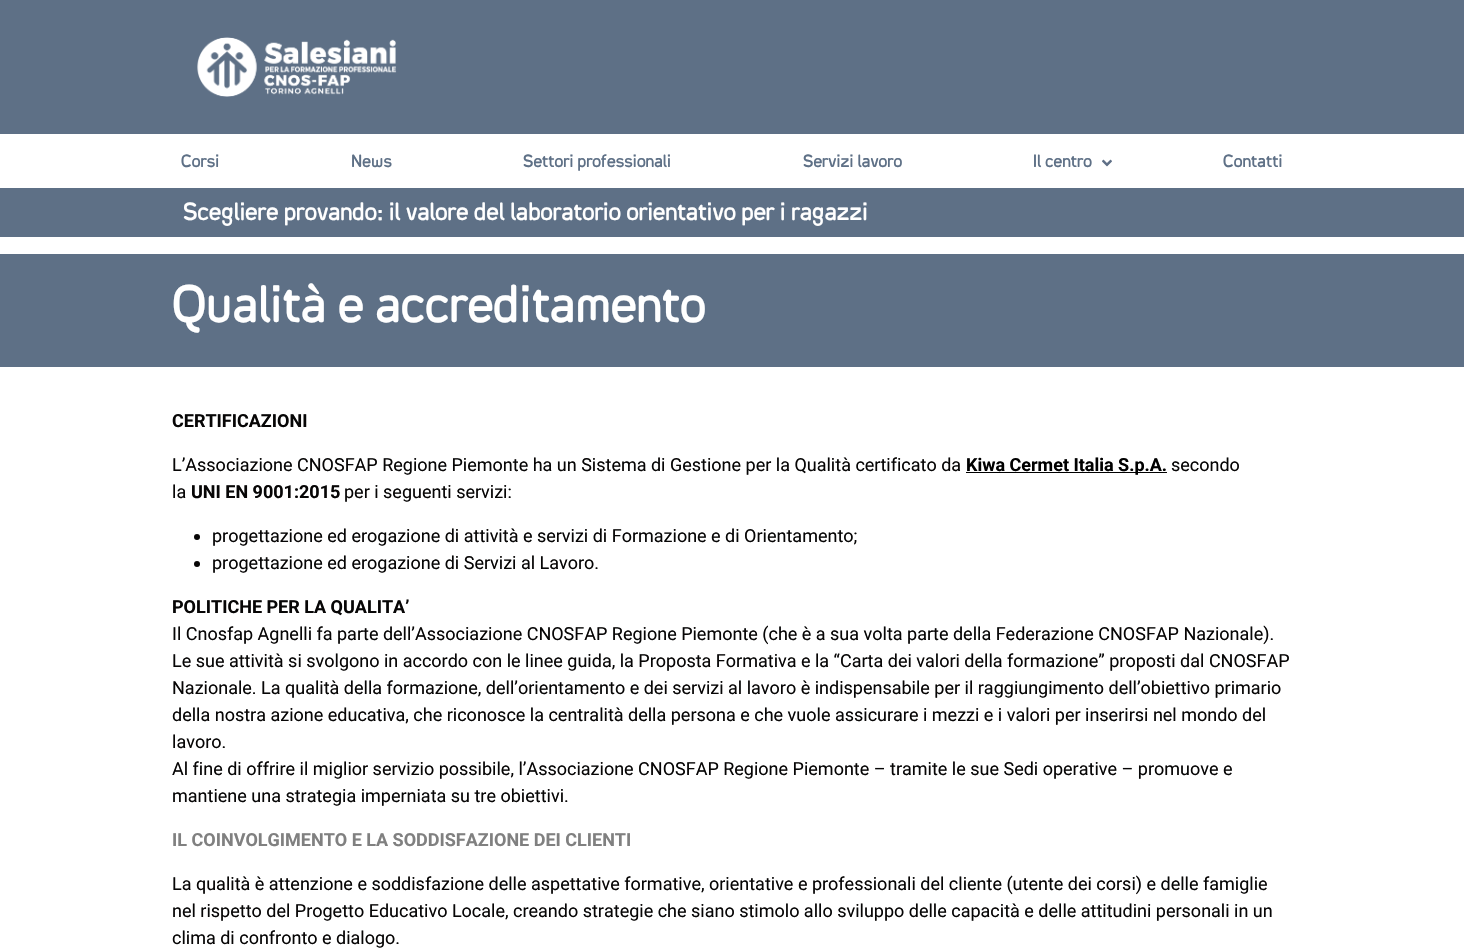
#include "include/core/SkBlurTypes.h"
#include "include/core/SkCanvas.h"
#include "include/core/SkData.h"
#include "include/core/SkFont.h"
#include "include/core/SkFontMgr.h"
#include "include/core/SkImage.h"
#include "include/core/SkMaskFilter.h"
#include "include/core/SkPaint.h"
#include "include/core/SkPathBuilder.h"
#include "include/core/SkTextBlob.h"
#include "include/effects/SkDashPathEffect.h"
#include "include/effects/SkGradientShader.h"
#include "include/utils/SkParsePath.h"

extern sk_sp<SkFontMgr> fontMgr;

static SkFont font(const char* family, int weight, float size, bool italic = false) {
    SkFontStyle style(weight, SkFontStyle::kNormal_Width,
        italic ? SkFontStyle::kItalic_Slant : SkFontStyle::kUpright_Slant);
    SkFont result(fontMgr->matchFamilyStyle(family, style), size);
    result.setSubpixel(true);
    return result;
}

static void drawLabel(SkCanvas* canvas, const char* s, float x, float y, const SkFont& font, SkColor color) {
    SkPaint ink(SkColor4f::FromColor(color));
    ink.setAntiAlias(true);
    canvas->drawString(s, x, y, font, ink);
}

static void fillRect(SkCanvas* canvas, float x, float y, float w, float h, SkColor color) {
    SkPaint ink(SkColor4f::FromColor(color));
    ink.setAntiAlias(true);
    canvas->drawRect(SkRect::MakeXYWH(x, y, w, h), ink);
}

static void drawPhoto(SkCanvas* canvas, const char* path, float x, float y, float w, float h) {
    auto image = SkImages::DeferredFromEncodedData(SkData::MakeFromFileName(path));
    canvas->drawImageRect(image, SkRect::MakeXYWH(x, y, w, h), SkSamplingOptions());
}

void draw(SkCanvas* canvas) {
    SkPaint paint;
    paint.setAntiAlias(true);
    canvas->clear(0xFFFFFFFF);
    fillRect(canvas, 0, 0, 1464, 134, 0xFF5E7086);
    drawPhoto(canvas, "assets/img1.png", 197, 37, 200, 60);
    SkFont font1 = font("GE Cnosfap", 400, 20);
    drawLabel(canvas, "Corsi", 181, 167, font1, 0xFF5E7086);
    drawLabel(canvas, "News", 351, 167, font1, 0xFF5E7086);
    drawLabel(canvas, "Settori professionali", 523, 167, font1, 0xFF5E7086);
    drawLabel(canvas, "Servizi lavoro", 803, 167, font1, 0xFF5E7086);
    drawLabel(canvas, "Il centro", 1033, 167, font1, 0xFF5E7086);
    drawPhoto(canvas, "assets/img2.png", 1102, 159, 10, 8);
    drawLabel(canvas, "Contatti", 1223, 167, font1, 0xFF5E7086);
    fillRect(canvas, 0, 188, 1464, 49, 0xFF5E7086);
    SkFont font2 = font("GE Cnosfap", 400, 28);
    drawLabel(canvas, "Scegliere provando: il valore del laboratorio orientativo per i ragazzi", 183, 220, font2, 0xFFFFFFFF);
    fillRect(canvas, 0, 254, 1464, 113, 0xFF5E7086);
    SkFont font3 = font("GE Cnosfap", 400, 59);
    drawLabel(canvas, "Qualità e accreditamento", 172, 322, font3, 0xFFFFFFFF);
    SkFont font4 = font("Roboto", 700, 18);
    drawLabel(canvas, "CERTIFICAZIONI", 172, 427, font4, 0xFF070606);
    SkFont font5 = font("Roboto", 400, 18);
    drawLabel(canvas, "L’Associazione CNOSFAP Regione Piemonte ha un Sistema di Gestione per la Qualità certificato da", 172, 471, font5, 0xFF070606);
    fillRect(canvas, 966, 472, 201, 1, 0xFF000000);
    drawLabel(canvas, "Kiwa Cermet Italia S.p.A.", 966, 471, font4, 0xFF000000);
    drawLabel(canvas, "secondo", 1171, 471, font5, 0xFF070606);
    drawLabel(canvas, "la", 172, 498, font5, 0xFF070606);
    drawLabel(canvas, "UNI EN 9001:2015", 191, 498, font4, 0xFF070606);
    drawLabel(canvas, "per i seguenti servizi:", 344, 498, font5, 0xFF070606);
    paint.setColor(0xFF070606);
    canvas->drawCircle(197, 537, 3, paint);
    drawLabel(canvas, "progettazione ed erogazione di attività e servizi di Formazione e di Orientamento;", 212, 542, font5, 0xFF070606);
    canvas->drawCircle(197, 564, 3, paint);
    drawLabel(canvas, "progettazione ed erogazione di Servizi al Lavoro.", 212, 569, font5, 0xFF070606);
    drawLabel(canvas, "POLITICHE PER LA QUALITA’", 172, 613, font4, 0xFF070606);
    drawLabel(canvas, "Il Cnosfap Agnelli fa parte dell’Associazione CNOSFAP Regione Piemonte (che è a sua volta parte della Federazione CNOSFAP Nazionale).", 172, 640, font5, 0xFF070606);
    drawLabel(canvas, "Le sue attività si svolgono in accordo con le linee guida, la Proposta Formativa e la “Carta dei valori della formazione” proposti dal CNOSFAP", 172, 667, font5, 0xFF070606);
    drawLabel(canvas, "Nazionale. La qualità della formazione, dell’orientamento e dei servizi al lavoro è indispensabile per il raggiungimento dell’obiettivo primario", 172, 694, font5, 0xFF070606);
    drawLabel(canvas, "della nostra azione educativa, che riconosce la centralità della persona e che vuole assicurare i mezzi e i valori per inserirsi nel mondo del", 172, 721, font5, 0xFF070606);
    drawLabel(canvas, "lavoro.", 172, 748, font5, 0xFF070606);
    drawLabel(canvas, "Al fine di offrire il miglior servizio possibile, l’Associazione CNOSFAP Regione Piemonte – tramite le sue Sedi operative – promuove e", 172, 775, font5, 0xFF070606);
    drawLabel(canvas, "mantiene una strategia imperniata su tre obiettivi.", 172, 802, font5, 0xFF070606);
    drawLabel(canvas, "IL COINVOLGIMENTO E LA SODDISFAZIONE DEI CLIENTI", 172, 846, font4, 0xFF808080);
    drawLabel(canvas, "La qualità è attenzione e soddisfazione delle aspettative formative, orientative e professionali del cliente (utente dei corsi) e delle famiglie", 172, 890, font5, 0xFF070606);
    drawLabel(canvas, "nel rispetto del Progetto Educativo Locale, creando strategie che siano stimolo allo sviluppo delle capacità e delle attitudini personali in un", 172, 917, font5, 0xFF070606);
    drawLabel(canvas, "clima di confronto e dialogo.", 172, 944, font5, 0xFF070606);
}
